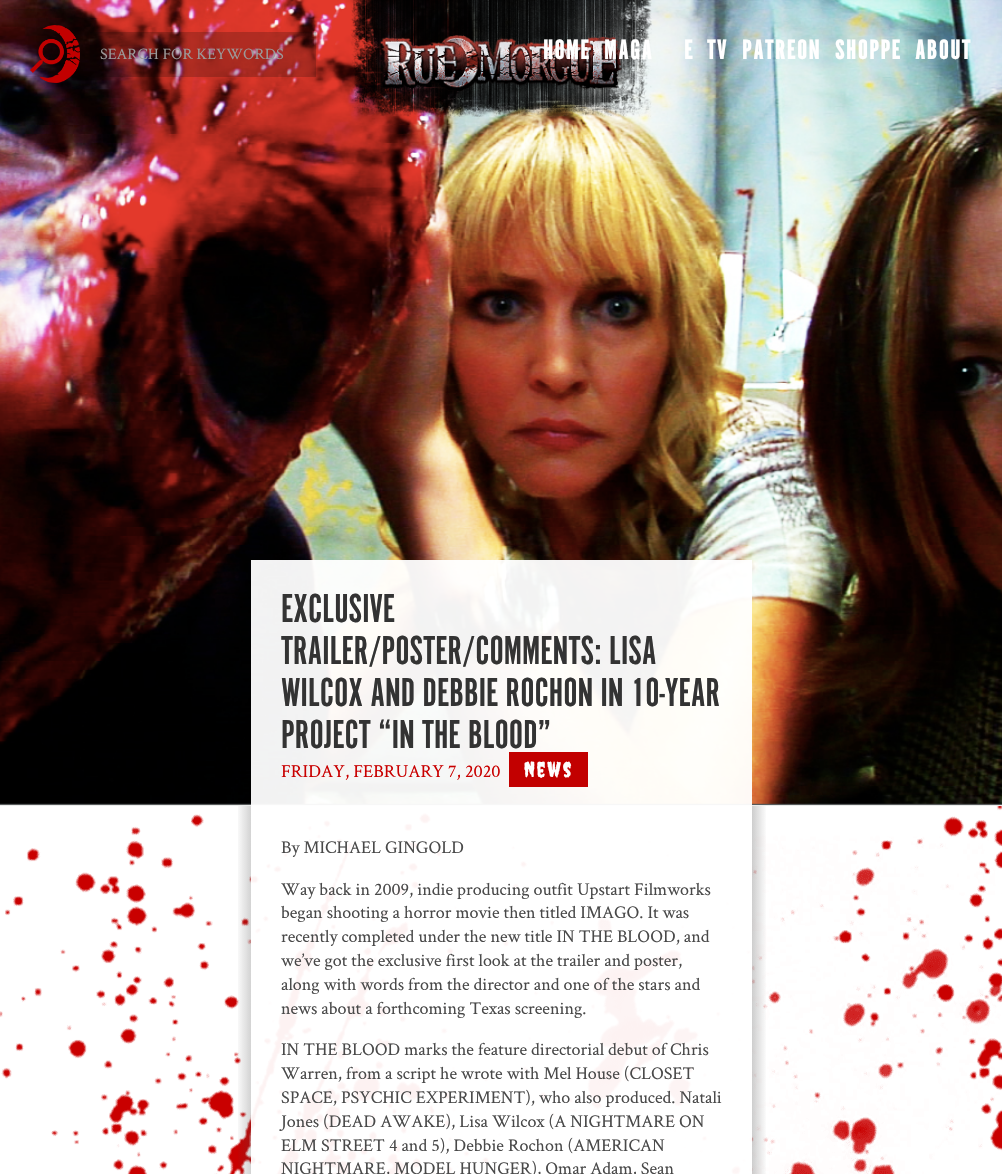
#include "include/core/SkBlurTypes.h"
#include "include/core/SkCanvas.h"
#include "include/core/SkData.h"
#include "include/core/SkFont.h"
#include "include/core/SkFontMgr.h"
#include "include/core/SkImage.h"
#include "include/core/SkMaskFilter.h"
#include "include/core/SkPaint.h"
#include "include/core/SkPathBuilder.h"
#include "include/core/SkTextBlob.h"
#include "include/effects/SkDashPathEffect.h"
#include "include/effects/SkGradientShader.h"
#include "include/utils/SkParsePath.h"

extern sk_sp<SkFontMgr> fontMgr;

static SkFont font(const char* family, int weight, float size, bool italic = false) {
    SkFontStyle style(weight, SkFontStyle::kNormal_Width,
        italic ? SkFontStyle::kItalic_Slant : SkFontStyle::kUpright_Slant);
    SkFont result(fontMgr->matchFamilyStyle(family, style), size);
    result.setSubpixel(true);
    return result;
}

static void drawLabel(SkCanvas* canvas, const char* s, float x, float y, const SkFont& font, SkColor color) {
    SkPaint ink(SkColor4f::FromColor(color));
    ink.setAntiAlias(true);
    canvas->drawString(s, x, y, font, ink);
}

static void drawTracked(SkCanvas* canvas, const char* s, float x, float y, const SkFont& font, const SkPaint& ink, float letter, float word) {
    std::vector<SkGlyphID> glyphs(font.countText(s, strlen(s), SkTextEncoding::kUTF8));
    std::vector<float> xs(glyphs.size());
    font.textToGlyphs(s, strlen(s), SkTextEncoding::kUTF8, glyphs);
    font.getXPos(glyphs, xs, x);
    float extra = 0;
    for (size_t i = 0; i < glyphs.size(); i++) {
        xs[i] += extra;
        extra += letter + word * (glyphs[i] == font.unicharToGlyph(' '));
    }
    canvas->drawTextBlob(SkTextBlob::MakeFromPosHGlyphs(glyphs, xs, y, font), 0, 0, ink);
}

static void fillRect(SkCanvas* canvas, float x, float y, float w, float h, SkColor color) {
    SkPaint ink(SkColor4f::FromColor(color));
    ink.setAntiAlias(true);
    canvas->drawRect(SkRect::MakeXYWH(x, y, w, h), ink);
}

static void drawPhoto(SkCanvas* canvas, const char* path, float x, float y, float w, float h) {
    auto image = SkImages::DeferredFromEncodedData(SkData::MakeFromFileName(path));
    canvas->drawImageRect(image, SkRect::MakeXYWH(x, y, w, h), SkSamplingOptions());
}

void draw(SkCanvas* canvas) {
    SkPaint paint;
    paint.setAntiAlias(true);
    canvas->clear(0xFFFFFFFF);
    drawPhoto(canvas, "assets/img4.png", 0, 0, 1002, 806);
    drawPhoto(canvas, "assets/img1.png", 30, 25, 50, 58);
    fillRect(canvas, 90, 32, 226, 45, 0x33000000);
    SkFont font1 = font("Crimson Text", 400, 16);
    drawLabel(canvas, "SEARCH FOR KEYWORDS", 100, 59, font1, 0xFF9B9999);
    drawPhoto(canvas, "assets/img2.png", 350, 0, 302, 117);
    drawPhoto(canvas, "assets/img3.png", 380, 35, 242, 56);
    SkFont font2 = font("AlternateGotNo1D", 700, 28);
    paint.setColor(0xFFFFFFFF);
    drawTracked(canvas, "HOME", 543, 59, font2, paint, 2, 0);
    drawTracked(canvas, "MAGA", 604, 59, font2, paint, 2, 0);
    drawTracked(canvas, "E", 684, 59, font2, paint, 2, 0);
    drawTracked(canvas, "TV", 707, 59, font2, paint, 2, 0);
    drawTracked(canvas, "PATREON", 742, 59, font2, paint, 2, 0);
    drawTracked(canvas, "SHOPPE", 835, 59, font2, paint, 2, 0);
    drawTracked(canvas, "ABOUT", 915, 59, font2, paint, 2, 0);
    fillRect(canvas, 251, 560, 501, 246, 0xF2FFFFFF);
    SkFont font3 = font("AlternateGotNo1D", 400, 42);
    drawLabel(canvas, "EXCLUSIVE", 281, 622, font3, 0xFF333333);
    drawLabel(canvas, "TRAILER/POSTER/COMMENTS: LISA", 281, 664, font3, 0xFF333333);
    drawLabel(canvas, "WILCOX AND DEBBIE ROCHON IN 10-YEAR", 281, 706, font3, 0xFF333333);
    drawLabel(canvas, "PROJECT “IN THE BLOOD”", 281, 748, font3, 0xFF333333);
    SkFont font4 = font("Crimson Text", 400, 18.25f);
    drawLabel(canvas, "FRIDAY, FEBRUARY 7, 2020", 281, 777, font4, 0xFFC90000);
    fillRect(canvas, 509, 752, 79, 35, 0xFFC20000);
    SkFont font5 = font("Creepster", 400, 21);
    drawTracked(canvas, "News", 524, 777, font5, paint, 2, 0);
    drawPhoto(canvas, "assets/img5.png", 0, 806, 1002, 368);
    fillRect(canvas, 251, 812, 501, 362, 0xF2FFFFFF);
    drawPhoto(canvas, "assets/img6.png", 238, 806, 528, 368);
    SkFont font6 = font("Crimson Text", 400, 18);
    drawLabel(canvas, "By MICHAEL GINGOLD", 281, 853, font6, 0xFF494949);
    drawLabel(canvas, "Way back in 2009, indie producing outfit Upstart Filmworks", 281, 895, font6, 0xFF494949);
    drawLabel(canvas, "began shooting a horror movie then titled IMAGO. It was", 281, 918, font6, 0xFF494949);
    drawLabel(canvas, "recently completed under the new title IN THE BLOOD, and", 281, 942, font6, 0xFF494949);
    drawLabel(canvas, "we’ve got the exclusive first look at the trailer and poster,", 281, 966, font6, 0xFF494949);
    drawLabel(canvas, "along with words from the director and one of the stars and", 281, 990, font6, 0xFF494949);
    drawLabel(canvas, "news about a forthcoming Texas screening.", 281, 1014, font6, 0xFF494949);
    drawLabel(canvas, "IN THE BLOOD marks the feature directorial debut of Chris", 281, 1055, font6, 0xFF494949);
    drawLabel(canvas, "Warren, from a script he wrote with Mel House (CLOSET", 281, 1079, font6, 0xFF494949);
    drawLabel(canvas, "SPACE, PSYCHIC EXPERIMENT), who also produced. Natali", 281, 1103, font6, 0xFF494949);
    drawLabel(canvas, "Jones (DEAD AWAKE), Lisa Wilcox (A NIGHTMARE ON", 281, 1127, font6, 0xFF494949);
    drawLabel(canvas, "ELM STREET 4 and 5), Debbie Rochon (AMERICAN", 281, 1151, font6, 0xFF494949);
    drawLabel(canvas, "NIGHTMARE, MODEL HUNGER), Omar Adam, Sean", 281, 1174, font6, 0xFF494949);
}
